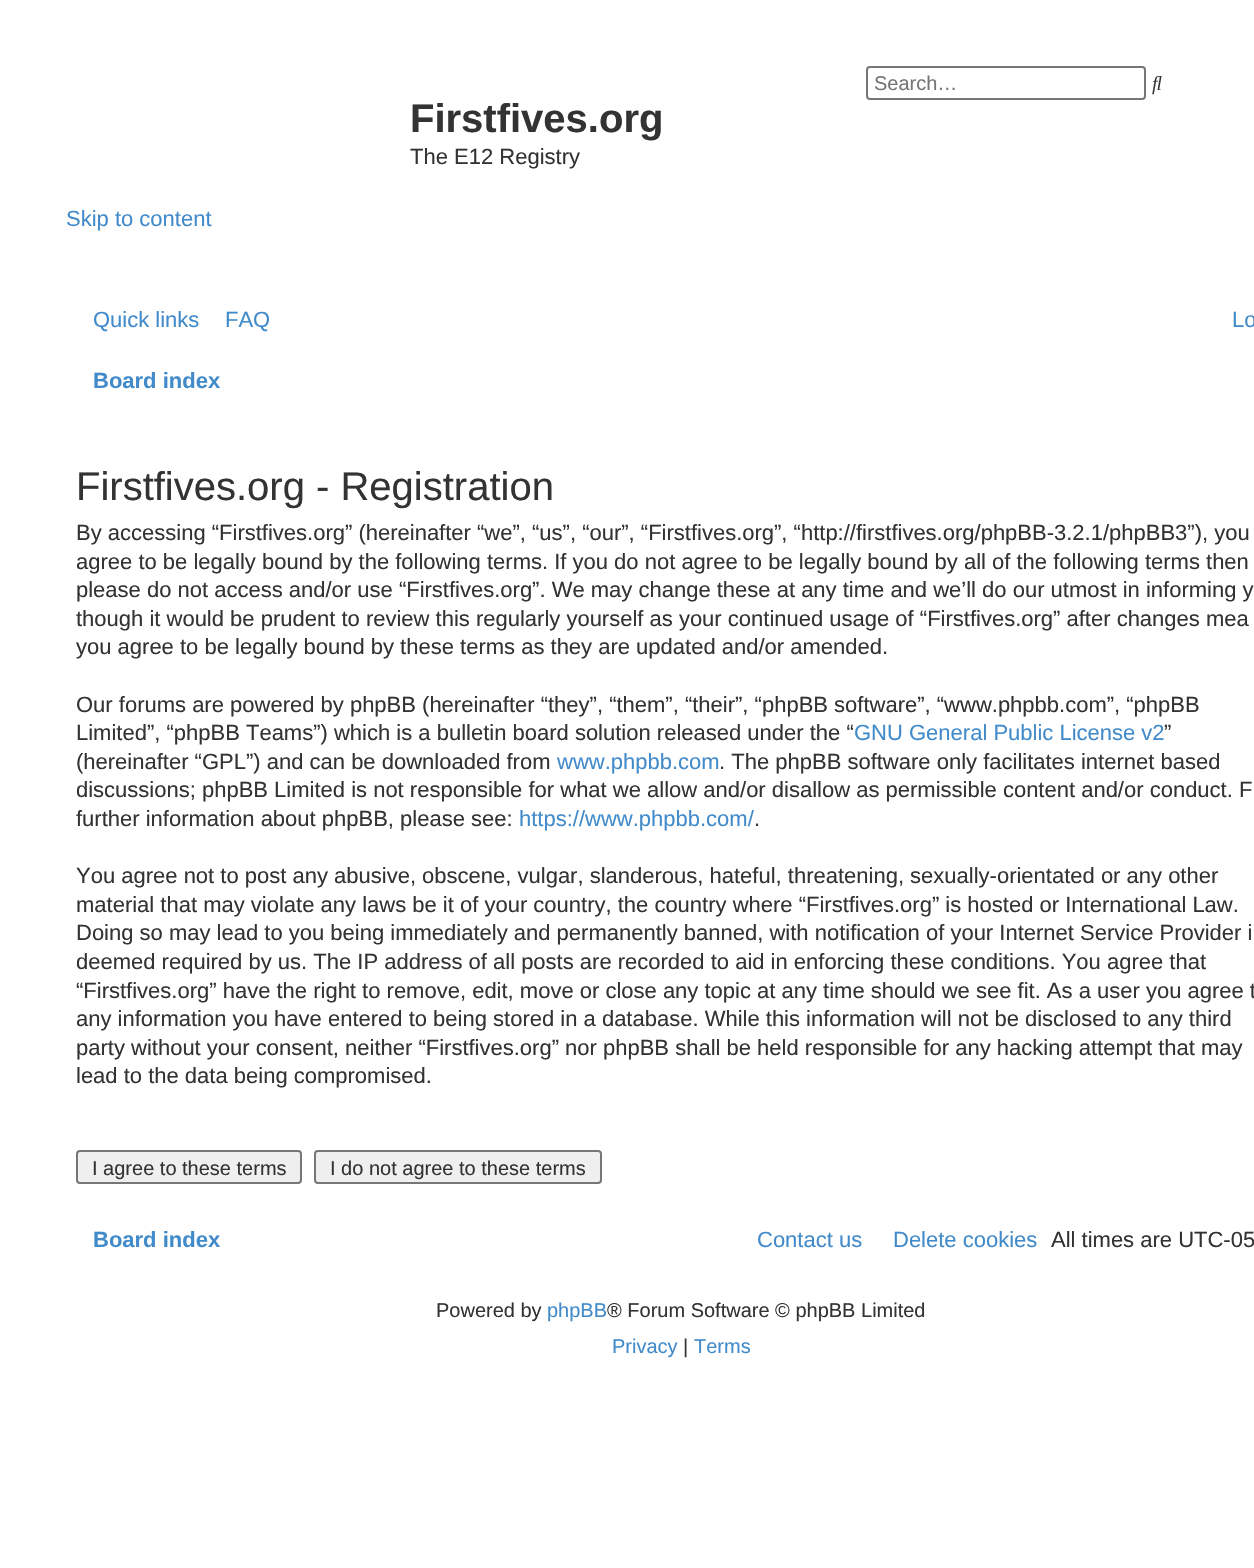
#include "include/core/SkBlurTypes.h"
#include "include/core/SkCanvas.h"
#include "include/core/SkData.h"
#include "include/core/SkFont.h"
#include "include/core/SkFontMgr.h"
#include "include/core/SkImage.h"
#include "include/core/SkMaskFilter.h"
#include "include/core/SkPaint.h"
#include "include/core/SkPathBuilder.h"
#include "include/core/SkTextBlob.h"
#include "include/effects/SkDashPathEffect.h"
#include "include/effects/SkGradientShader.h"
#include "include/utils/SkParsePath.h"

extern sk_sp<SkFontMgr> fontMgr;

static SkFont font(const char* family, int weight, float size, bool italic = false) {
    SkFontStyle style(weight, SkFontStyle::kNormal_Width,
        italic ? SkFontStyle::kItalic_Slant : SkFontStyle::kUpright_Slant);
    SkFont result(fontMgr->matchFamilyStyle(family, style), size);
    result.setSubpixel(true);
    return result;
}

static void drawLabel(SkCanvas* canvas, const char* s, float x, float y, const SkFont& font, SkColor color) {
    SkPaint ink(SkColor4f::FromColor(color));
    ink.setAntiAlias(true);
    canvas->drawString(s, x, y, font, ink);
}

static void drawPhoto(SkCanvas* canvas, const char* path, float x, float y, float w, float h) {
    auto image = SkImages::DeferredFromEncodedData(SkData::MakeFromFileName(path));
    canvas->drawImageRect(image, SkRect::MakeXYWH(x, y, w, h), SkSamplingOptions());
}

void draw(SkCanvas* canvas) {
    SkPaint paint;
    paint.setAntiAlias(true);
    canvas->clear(0xFFFFFFFF);
    paint.setStroke(true);
    paint.setStrokeWidth(2);
    paint.setColor(0xFF767676);
    canvas->drawRoundRect(SkRect::MakeXYWH(867, 67, 278, 32), 3, 3, paint);
    SkFont font1 = font("Liberation Sans", 400, 20);
    drawLabel(canvas, "Search…", 874, 90, font1, 0xFF757575);
    drawPhoto(canvas, "assets/img1.png", 1152, 75, 10, 20);
    SkFont font2 = font("Liberation Sans", 700, 40);
    drawLabel(canvas, "Firstfives.org", 410, 132, font2, 0xFF333333);
    SkFont font3 = font("Liberation Sans", 400, 22);
    drawLabel(canvas, "The E12 Registry", 410, 164, font3, 0xFF333333);
    drawLabel(canvas, "Skip to content", 66, 226, font3, 0xFF428BCA);
    drawLabel(canvas, "Quick links", 93, 327, font3, 0xFF428BCA);
    drawLabel(canvas, "FAQ", 225, 327, font3, 0xFF428BCA);
    drawLabel(canvas, "Lo", 1232, 327, font3, 0xFF428BCA);
    SkFont font4 = font("Liberation Sans", 700, 22);
    drawLabel(canvas, "Board index", 93, 388, font4, 0xFF428BCA);
    SkFont font5 = font("Liberation Sans", 400, 40);
    drawLabel(canvas, "Firstfives.org - Registration", 76, 500, font5, 0xFF333333);
    drawLabel(canvas, "By accessing “Firstfives.org” (hereinafter “we”, “us”, “our”, “Firstfives.org”, “http://firstfives.org/phpBB-3.2.1/phpBB3”), you", 76, 540, font3, 0xFF333333);
    drawLabel(canvas, "agree to be legally bound by the following terms. If you do not agree to be legally bound by all of the following terms then", 76, 569, font3, 0xFF333333);
    drawLabel(canvas, "please do not access and/or use “Firstfives.org”. We may change these at any time and we’ll do our utmost in informing y", 76, 597, font3, 0xFF333333);
    drawLabel(canvas, "though it would be prudent to review this regularly yourself as your continued usage of “Firstfives.org” after changes mea", 76, 626, font3, 0xFF333333);
    drawLabel(canvas, "you agree to be legally bound by these terms as they are updated and/or amended.", 76, 654, font3, 0xFF333333);
    drawLabel(canvas, "Our forums are powered by phpBB (hereinafter “they”, “them”, “their”, “phpBB software”, “www.phpbb.com”, “phpBB", 76, 712, font3, 0xFF333333);
    drawLabel(canvas, "Limited”, “phpBB Teams”) which is a bulletin board solution released under the “", 76, 740, font3, 0xFF333333);
    drawLabel(canvas, "GNU General Public License v2", 854, 740, font3, 0xFF428BCA);
    drawLabel(canvas, "”", 1164, 740, font3, 0xFF333333);
    drawLabel(canvas, "(hereinafter “GPL”) and can be downloaded from", 76, 769, font3, 0xFF333333);
    drawLabel(canvas, "www.phpbb.com", 557, 769, font3, 0xFF428BCA);
    drawLabel(canvas, ". The phpBB software only facilitates internet based", 719, 769, font3, 0xFF333333);
    drawLabel(canvas, "discussions; phpBB Limited is not responsible for what we allow and/or disallow as permissible content and/or conduct. F", 76, 797, font3, 0xFF333333);
    drawLabel(canvas, "further information about phpBB, please see:", 76, 826, font3, 0xFF333333);
    drawLabel(canvas, "https://www.phpbb.com/", 519, 826, font3, 0xFF428BCA);
    drawLabel(canvas, ".", 754, 826, font3, 0xFF333333);
    drawLabel(canvas, "You agree not to post any abusive, obscene, vulgar, slanderous, hateful, threatening, sexually-orientated or any other", 76, 883, font3, 0xFF333333);
    drawLabel(canvas, "material that may violate any laws be it of your country, the country where “Firstfives.org” is hosted or International Law.", 76, 912, font3, 0xFF333333);
    drawLabel(canvas, "Doing so may lead to you being immediately and permanently banned, with notification of your Internet Service Provider i", 76, 940, font3, 0xFF333333);
    drawLabel(canvas, "deemed required by us. The IP address of all posts are recorded to aid in enforcing these conditions. You agree that", 76, 969, font3, 0xFF333333);
    drawLabel(canvas, "“Firstfives.org” have the right to remove, edit, move or close any topic at any time should we see fit. As a user you agree t", 76, 998, font3, 0xFF333333);
    drawLabel(canvas, "any information you have entered to being stored in a database. While this information will not be disclosed to any third", 76, 1026, font3, 0xFF333333);
    drawLabel(canvas, "party without your consent, neither “Firstfives.org” nor phpBB shall be held responsible for any hacking attempt that may", 76, 1055, font3, 0xFF333333);
    drawLabel(canvas, "lead to the data being compromised.", 76, 1083, font3, 0xFF333333);
    paint.setStroke(false);
    paint.setColor(0xFFEFEFEF);
    canvas->drawRoundRect(SkRect::MakeXYWH(77, 1151, 224, 32), 3, 3, paint);
    paint.setStroke(true);
    paint.setColor(0xFF767676);
    canvas->drawRoundRect(SkRect::MakeXYWH(77, 1151, 224, 32), 3, 3, paint);
    drawLabel(canvas, "I agree to these terms", 92, 1175, font1, 0xFF333333);
    paint.setStroke(false);
    paint.setColor(0xFFEFEFEF);
    canvas->drawRoundRect(SkRect::MakeXYWH(315, 1151, 286, 32), 3, 3, paint);
    paint.setStroke(true);
    paint.setColor(0xFF767676);
    canvas->drawRoundRect(SkRect::MakeXYWH(315, 1151, 286, 32), 3, 3, paint);
    drawLabel(canvas, "I do not agree to these terms", 330, 1175, font1, 0xFF333333);
    drawLabel(canvas, "Board index", 93, 1247, font4, 0xFF428BCA);
    drawLabel(canvas, "Contact us", 757, 1247, font3, 0xFF428BCA);
    drawLabel(canvas, "Delete cookies", 893, 1247, font3, 0xFF428BCA);
    drawLabel(canvas, "All times are UTC-05", 1051, 1247, font3, 0xFF333333);
    drawLabel(canvas, "Powered by", 436, 1317, font1, 0xFF333333);
    drawLabel(canvas, "phpBB", 547, 1317, font1, 0xFF428BCA);
    drawLabel(canvas, "® Forum Software © phpBB Limited", 607, 1317, font1, 0xFF333333);
    drawLabel(canvas, "Privacy", 612, 1353, font1, 0xFF428BCA);
    drawLabel(canvas, "|", 683, 1353, font1, 0xFF333333);
    drawLabel(canvas, "Terms", 694, 1353, font1, 0xFF428BCA);
}
